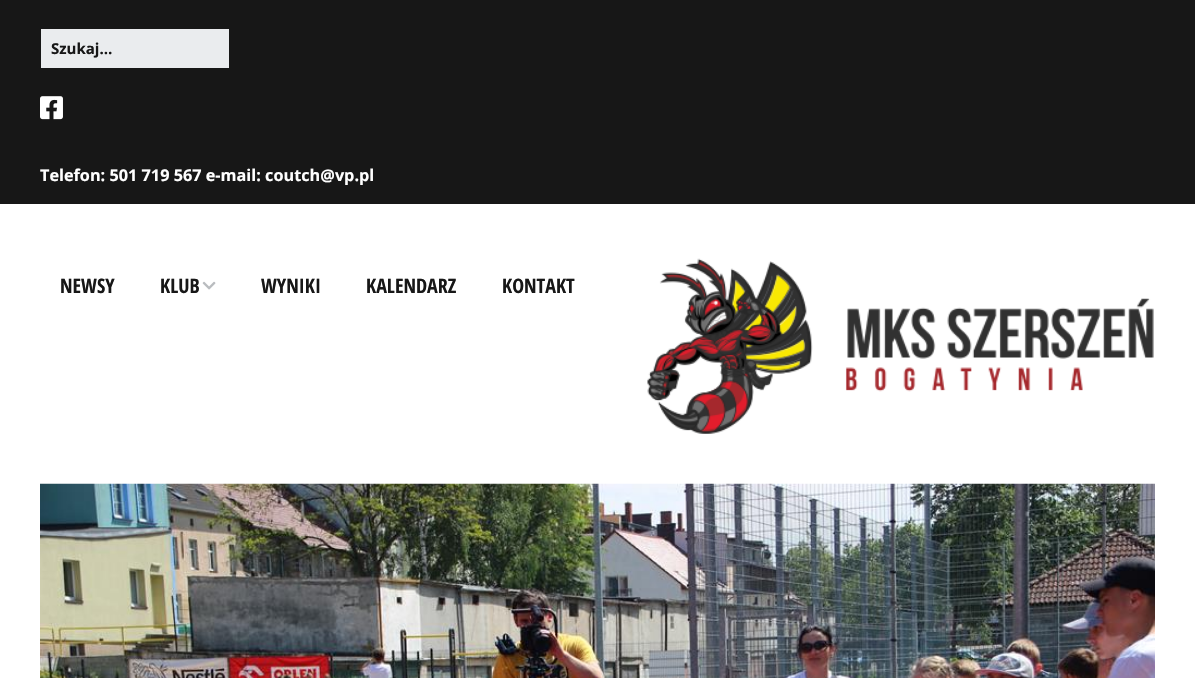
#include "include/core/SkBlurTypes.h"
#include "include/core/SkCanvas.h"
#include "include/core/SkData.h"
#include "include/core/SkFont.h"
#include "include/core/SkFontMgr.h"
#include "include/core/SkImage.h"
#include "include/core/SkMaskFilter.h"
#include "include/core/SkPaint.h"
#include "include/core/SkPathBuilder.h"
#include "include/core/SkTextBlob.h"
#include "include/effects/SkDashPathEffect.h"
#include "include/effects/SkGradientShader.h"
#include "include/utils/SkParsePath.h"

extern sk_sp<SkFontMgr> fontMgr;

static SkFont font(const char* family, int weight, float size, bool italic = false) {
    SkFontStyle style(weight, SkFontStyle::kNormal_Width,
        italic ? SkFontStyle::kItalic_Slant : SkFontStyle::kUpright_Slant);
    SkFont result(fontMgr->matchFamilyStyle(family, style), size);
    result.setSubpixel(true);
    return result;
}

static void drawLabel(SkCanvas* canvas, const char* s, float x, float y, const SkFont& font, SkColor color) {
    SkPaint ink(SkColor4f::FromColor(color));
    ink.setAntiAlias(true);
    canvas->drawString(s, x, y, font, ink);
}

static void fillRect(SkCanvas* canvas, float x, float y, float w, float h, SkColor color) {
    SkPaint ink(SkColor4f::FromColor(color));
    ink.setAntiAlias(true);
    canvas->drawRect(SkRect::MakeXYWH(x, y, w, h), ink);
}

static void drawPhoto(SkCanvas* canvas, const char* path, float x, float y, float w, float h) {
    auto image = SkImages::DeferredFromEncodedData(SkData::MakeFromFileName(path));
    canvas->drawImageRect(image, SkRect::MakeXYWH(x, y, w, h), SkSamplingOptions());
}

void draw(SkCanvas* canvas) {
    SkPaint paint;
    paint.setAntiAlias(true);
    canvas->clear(0xFF171717);
    fillRect(canvas, 41, 29, 188, 39, 0xFFEAECEE);
    SkFont font1 = font("Open Sans", 700, 15);
    drawLabel(canvas, "Szukaj…", 51, 54, font1, 0xFF171717);
    drawPhoto(canvas, "assets/img1.png", 40, 96, 23, 24);
    SkFont font2 = font("Open Sans", 700, 16.25f);
    drawLabel(canvas, "Telefon: 501 719 567 e-mail: coutch@vp.pl", 40, 181, font2, 0xFFFFFFFF);
    fillRect(canvas, 0, 204, 1195, 474, 0xFFFFFFFF);
    SkFont font3 = font("Open Sans Condensed", 700, 20);
    drawLabel(canvas, "NEWSY", 60, 293, font3, 0xFF171717);
    drawLabel(canvas, "KLUB", 160, 293, font3, 0xFF171717);
    drawPhoto(canvas, "assets/img2.png", 202, 281, 14, 9);
    drawLabel(canvas, "WYNIKI", 261, 293, font3, 0xFF171717);
    drawLabel(canvas, "KALENDARZ", 366, 293, font3, 0xFF171717);
    drawLabel(canvas, "KONTAKT", 502, 293, font3, 0xFF171717);
    drawPhoto(canvas, "assets/img3.png", 647, 258, 507, 176);
    drawPhoto(canvas, "assets/img4.png", 40, 483, 1115, 195);
}
